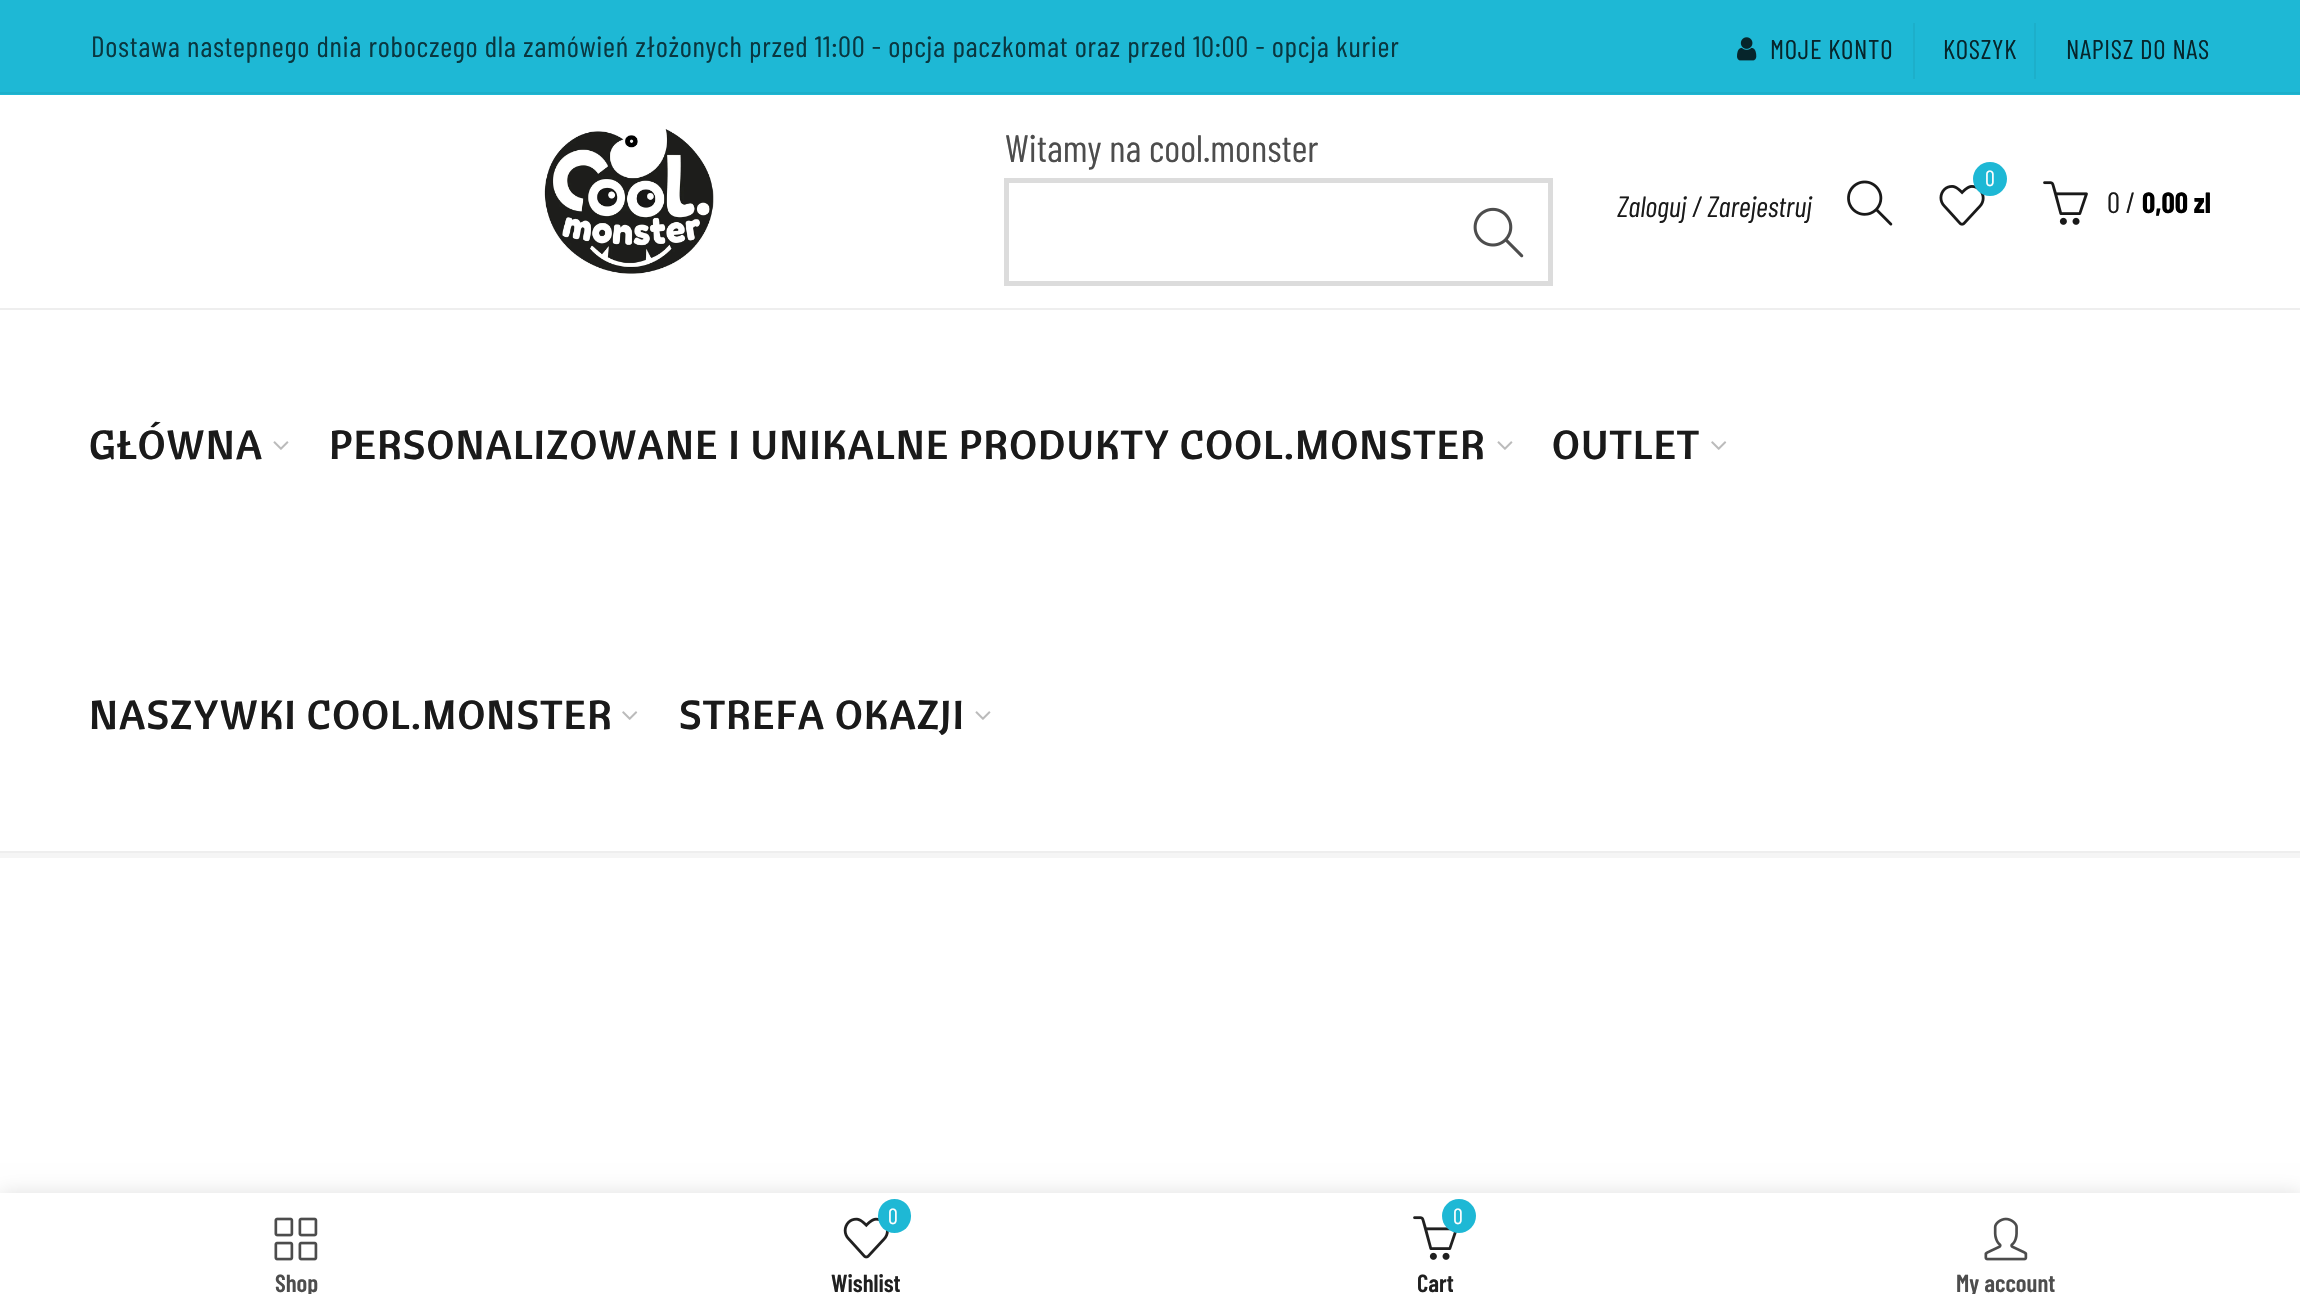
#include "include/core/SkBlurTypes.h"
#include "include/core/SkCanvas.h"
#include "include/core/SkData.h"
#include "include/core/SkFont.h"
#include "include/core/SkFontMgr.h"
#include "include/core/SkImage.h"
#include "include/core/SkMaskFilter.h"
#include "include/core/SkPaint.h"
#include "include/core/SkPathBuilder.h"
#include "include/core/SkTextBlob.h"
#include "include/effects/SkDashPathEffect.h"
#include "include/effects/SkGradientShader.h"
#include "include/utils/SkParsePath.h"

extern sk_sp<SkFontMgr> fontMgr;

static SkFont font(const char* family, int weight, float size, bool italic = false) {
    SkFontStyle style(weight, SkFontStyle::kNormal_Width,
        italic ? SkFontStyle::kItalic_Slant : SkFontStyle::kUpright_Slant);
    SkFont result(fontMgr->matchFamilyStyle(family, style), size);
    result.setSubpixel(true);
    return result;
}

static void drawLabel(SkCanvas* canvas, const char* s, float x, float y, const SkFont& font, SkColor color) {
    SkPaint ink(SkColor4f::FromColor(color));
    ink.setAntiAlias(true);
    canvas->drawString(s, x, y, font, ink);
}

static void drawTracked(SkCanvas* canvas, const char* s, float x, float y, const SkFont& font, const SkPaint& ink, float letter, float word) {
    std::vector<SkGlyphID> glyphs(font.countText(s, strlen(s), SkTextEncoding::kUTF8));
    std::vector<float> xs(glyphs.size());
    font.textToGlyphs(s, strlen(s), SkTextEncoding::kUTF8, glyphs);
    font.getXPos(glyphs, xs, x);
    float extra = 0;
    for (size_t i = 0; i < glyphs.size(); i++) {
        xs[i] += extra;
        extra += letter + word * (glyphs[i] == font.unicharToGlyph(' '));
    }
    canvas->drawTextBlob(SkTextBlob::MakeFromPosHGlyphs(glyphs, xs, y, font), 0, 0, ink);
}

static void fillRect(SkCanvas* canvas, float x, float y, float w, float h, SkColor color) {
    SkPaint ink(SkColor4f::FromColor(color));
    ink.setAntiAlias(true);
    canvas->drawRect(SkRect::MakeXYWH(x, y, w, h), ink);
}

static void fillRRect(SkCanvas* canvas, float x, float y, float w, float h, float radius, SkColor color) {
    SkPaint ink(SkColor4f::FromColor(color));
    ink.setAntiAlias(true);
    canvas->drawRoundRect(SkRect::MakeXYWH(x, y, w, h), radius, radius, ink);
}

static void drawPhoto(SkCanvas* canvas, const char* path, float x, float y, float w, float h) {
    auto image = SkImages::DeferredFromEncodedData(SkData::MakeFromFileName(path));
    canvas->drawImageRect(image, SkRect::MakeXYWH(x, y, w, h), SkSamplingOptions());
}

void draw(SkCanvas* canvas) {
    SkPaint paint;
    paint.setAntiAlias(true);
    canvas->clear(0xFFFFFFFF);
    fillRect(canvas, 0, 0, 2300, 95, 0xFF1EB8D5);
    fillRect(canvas, 0, 92, 2300, 2, 0xFF1DAFCA);
    SkFont font1 = font("Barlow Condensed", 400, 29.25f);
    paint.setColor(0xFF093740);
    drawTracked(canvas, "Dostawa nastepnego dnia roboczego dla zamówień złożonych przed 11:00 - opcja paczkomat oraz przed 10:00 - opcja kurier", 91, 57, font1, paint, 0.67f, 0);
    drawPhoto(canvas, "assets/img1.png", 1737, 37, 20, 24);
    SkFont font2 = font("Barlow Condensed", 400, 27);
    paint.setColor(0xFF06252B);
    drawTracked(canvas, "MOJE KONTO", 1770, 59, font2, paint, 0.67f, 0);
    fillRect(canvas, 1913, 23, 2, 56, 0xFF1DAFCA);
    drawTracked(canvas, "KOSZYK", 1943, 59, font2, paint, 0.67f, 0);
    fillRect(canvas, 2034, 23, 2, 56, 0xFF1DAFCA);
    drawTracked(canvas, "NAPISZ DO NAS", 2066, 59, font2, paint, 0.67f, 0);
    fillRect(canvas, 0, 853, 2300, 5, 0xFFF5F5F5);
    drawPhoto(canvas, "assets/img2.png", 544, 129, 170, 145);
    SkFont font3 = font("Barlow Condensed", 400, 38.25f);
    drawLabel(canvas, "Witamy na cool.monster", 1005, 162, font3, 0xFF4D4D4D);
    paint.setStroke(true);
    paint.setStrokeWidth(5);
    paint.setColor(0xFFDCDCDC);
    canvas->drawRect(SkRect::MakeXYWH(1006.5f, 180.5f, 544, 103), paint);
    drawPhoto(canvas, "assets/img3.png", 1473, 207, 51, 51);
    SkFont font4 = font("Barlow Condensed", 400, 29.25f, true);
    drawLabel(canvas, "Zaloguj / Zarejestruj", 1617, 217, font4, 0xFF1A1A1A);
    drawPhoto(canvas, "assets/img4.png", 1847, 180, 46, 46);
    drawPhoto(canvas, "assets/img5.png", 1939, 185, 46, 41);
    paint.setStroke(false);
    paint.setColor(0xFF1EB8D5);
    canvas->drawCircle(1990, 179, 17, paint);
    SkFont font5 = font("Barlow Condensed", 400, 22);
    drawLabel(canvas, "0", 1985, 186, font5, 0xFFFFFFFF);
    drawPhoto(canvas, "assets/img6.png", 2043, 181, 45, 44);
    drawLabel(canvas, "0 /", 2107, 213, font1, 0xFF1A1A1A);
    SkFont font6 = font("Barlow Condensed", 700, 29.25f);
    drawLabel(canvas, "0,00 zl", 2142, 213, font6, 0xFF000000);
    fillRect(canvas, 0, 308, 2300, 2, 0xFFEEEEEE);
    fillRect(canvas, 0, 851, 2300, 2, 0xFFEEEEEE);
    SkFont font7 = font("Cantora One", 400, 40.5f);
    paint.setColor(0xFF1A1A1A);
    drawTracked(canvas, "GŁÓWNA", 89, 459, font7, paint, 1.1f, 0);
    drawPhoto(canvas, "assets/img7.png", 273, 441, 16, 9);
    drawTracked(canvas, "PERSONALIZOWANE I UNIKALNE PRODUKTY COOL.MONSTER", 329, 459, font7, paint, 1.1f, 0);
    drawPhoto(canvas, "assets/img7.png", 1497, 441, 16, 9);
    drawTracked(canvas, "OUTLET", 1552, 459, font7, paint, 1.1f, 0);
    drawPhoto(canvas, "assets/img8.png", 1711, 441, 16, 9);
    drawTracked(canvas, "NASZYWKI COOL.MONSTER", 89, 729, font7, paint, 1.1f, 0);
    drawPhoto(canvas, "assets/img8.png", 622, 711, 16, 9);
    drawTracked(canvas, "STREFA OKAZJI", 679, 729, font7, paint, 1.1f, 0);
    drawPhoto(canvas, "assets/img7.png", 975, 711, 16, 9);
    paint.setColor(0x1F000000);
    paint.setMaskFilter(SkMaskFilter::MakeBlur(kNormal_SkBlurStyle, 10));
    canvas->drawRect(SkRect::MakeXYWH(0, 1193, 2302, 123), paint);
    paint.setMaskFilter(nullptr);
    fillRect(canvas, 0, 1193, 2300, 122, 0xFFFFFFFF);
    drawPhoto(canvas, "assets/img9.png", 274, 1217, 44, 44);
    canvas->save();
    canvas->clipRect(SkRect::MakeXYWH(34, 1269, 524, 25));
    SkFont font8 = font("Barlow Condensed", 600, 24.75f);
    drawLabel(canvas, "Shop", 275, 1292, font8, 0xFF4D4D4D);
    canvas->restore();
    drawPhoto(canvas, "assets/img10.png", 843, 1217, 46, 42);
    fillRRect(canvas, 878, 1199, 33, 34, 16.5f, 0xFF1EB8D5);
    drawLabel(canvas, "0", 888, 1224, font5, 0xFFFFFFFF);
    drawLabel(canvas, "Wishlist", 831, 1292, font8, 0xFF202020);
    drawPhoto(canvas, "assets/img11.png", 1413, 1216, 44, 44);
    paint.setColor(0xFF1EB8D5);
    canvas->drawCircle(1459, 1216, 17, paint);
    drawLabel(canvas, "0", 1453, 1224, font5, 0xFFFFFFFF);
    drawLabel(canvas, "Cart", 1417, 1292, font8, 0xFF202020);
    drawPhoto(canvas, "assets/img12.png", 1984, 1217, 44, 44);
    canvas->save();
    canvas->clipRect(SkRect::MakeXYWH(1744, 1269, 524, 25));
    drawLabel(canvas, "My account", 1956, 1292, font8, 0xFF4D4D4D);
    canvas->restore();
}
